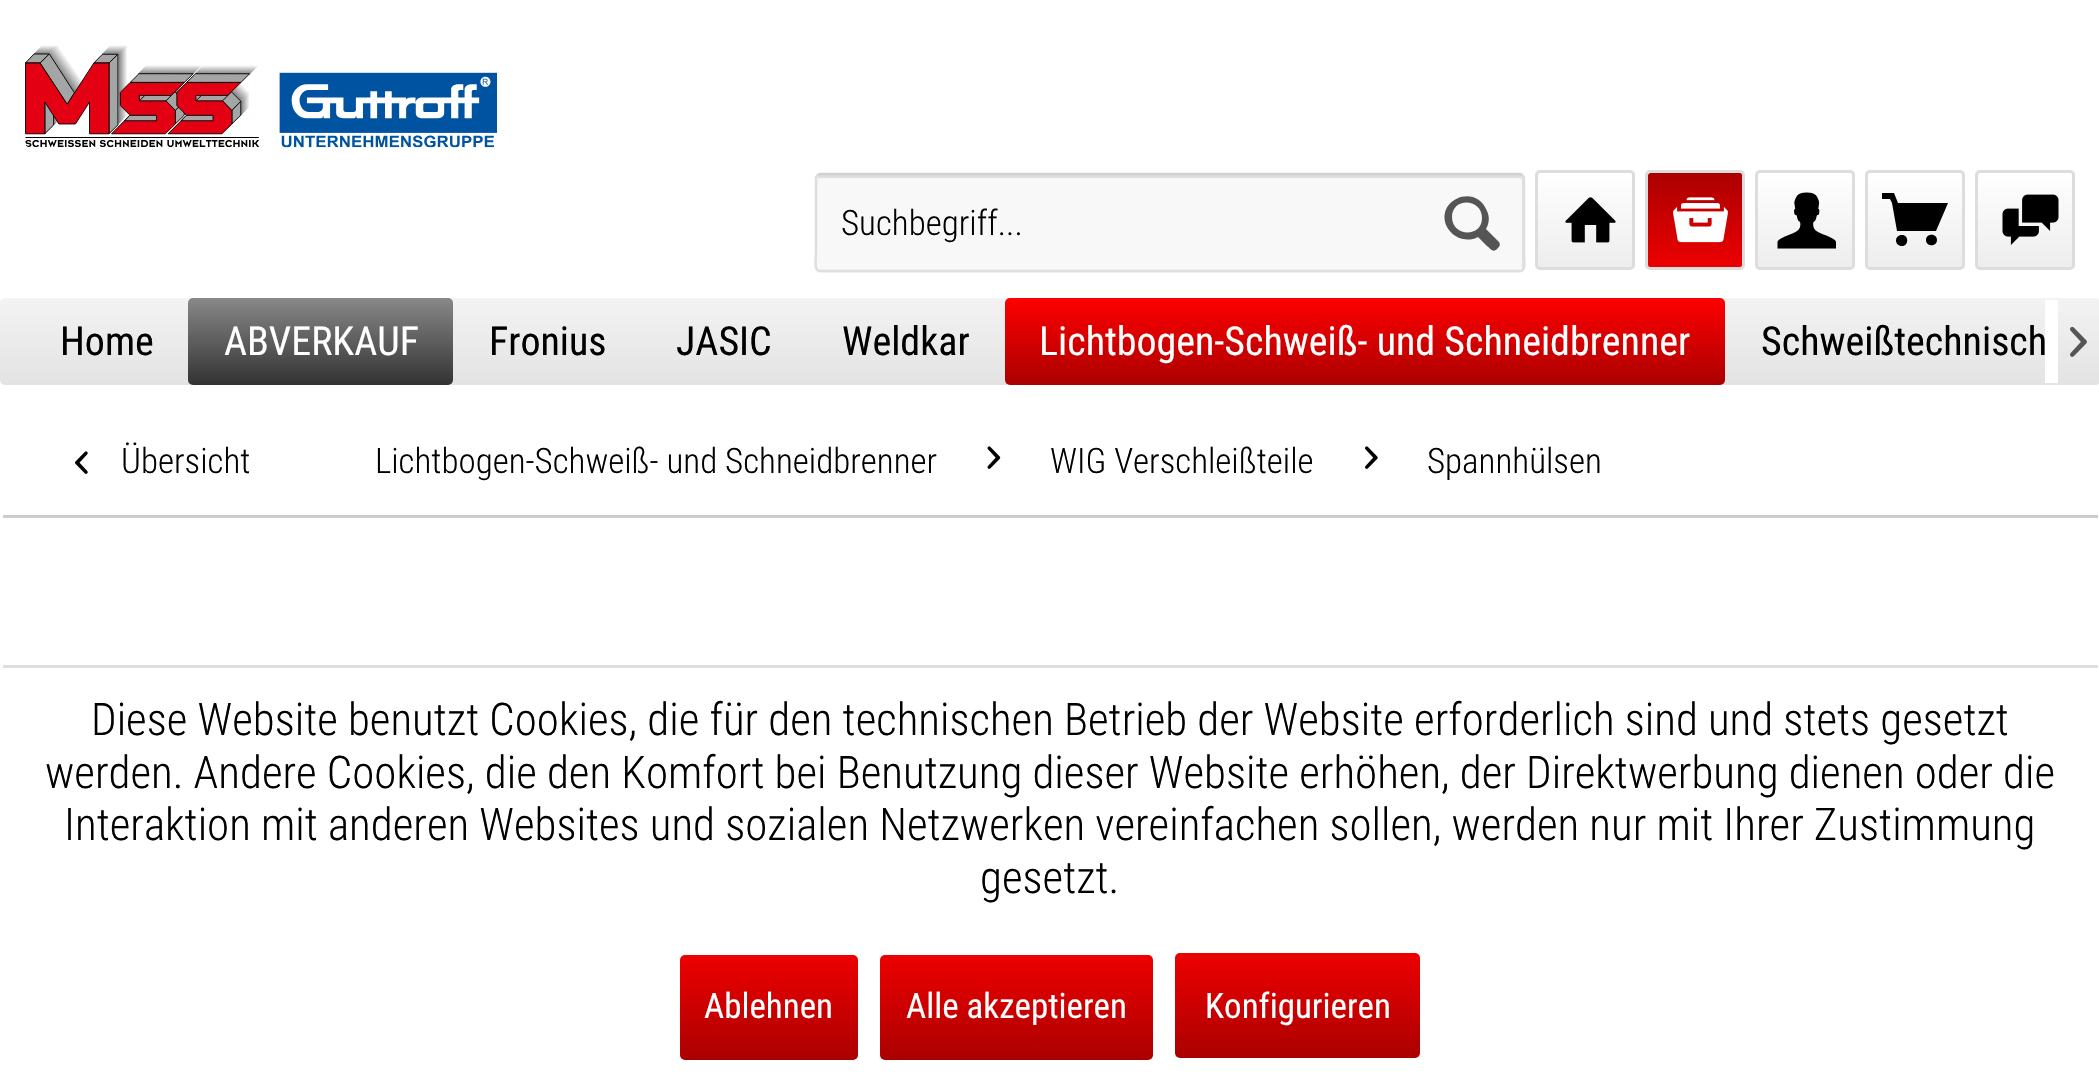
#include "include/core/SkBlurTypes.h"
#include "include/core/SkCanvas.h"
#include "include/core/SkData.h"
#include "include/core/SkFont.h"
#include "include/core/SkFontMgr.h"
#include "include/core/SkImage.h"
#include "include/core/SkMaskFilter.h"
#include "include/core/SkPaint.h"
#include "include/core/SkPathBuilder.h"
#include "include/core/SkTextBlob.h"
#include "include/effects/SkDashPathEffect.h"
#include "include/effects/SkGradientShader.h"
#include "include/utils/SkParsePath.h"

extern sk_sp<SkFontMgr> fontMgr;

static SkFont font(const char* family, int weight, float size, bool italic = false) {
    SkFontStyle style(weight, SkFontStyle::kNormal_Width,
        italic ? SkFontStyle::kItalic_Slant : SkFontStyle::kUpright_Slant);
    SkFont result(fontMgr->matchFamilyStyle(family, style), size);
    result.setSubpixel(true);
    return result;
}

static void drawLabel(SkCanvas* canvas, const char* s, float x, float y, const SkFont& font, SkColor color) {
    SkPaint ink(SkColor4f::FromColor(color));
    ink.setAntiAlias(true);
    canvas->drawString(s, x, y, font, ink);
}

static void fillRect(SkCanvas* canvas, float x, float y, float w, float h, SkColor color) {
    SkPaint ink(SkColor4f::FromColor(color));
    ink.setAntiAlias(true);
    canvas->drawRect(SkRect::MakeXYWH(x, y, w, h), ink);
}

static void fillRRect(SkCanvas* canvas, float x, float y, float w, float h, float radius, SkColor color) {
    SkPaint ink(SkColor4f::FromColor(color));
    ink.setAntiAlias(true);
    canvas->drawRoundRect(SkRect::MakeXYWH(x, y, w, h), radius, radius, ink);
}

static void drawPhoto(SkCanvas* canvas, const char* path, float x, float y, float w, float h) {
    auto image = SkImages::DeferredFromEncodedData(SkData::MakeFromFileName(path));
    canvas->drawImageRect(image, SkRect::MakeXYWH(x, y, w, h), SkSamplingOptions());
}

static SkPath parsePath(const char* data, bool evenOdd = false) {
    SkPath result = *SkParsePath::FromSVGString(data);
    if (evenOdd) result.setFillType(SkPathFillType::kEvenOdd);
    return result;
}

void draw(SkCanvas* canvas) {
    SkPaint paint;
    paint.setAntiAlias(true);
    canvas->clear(0xFFFFFFFF);
    drawPhoto(canvas, "assets/img1.png", 25, 45, 473, 103);
    fillRRect(canvas, 815, 173, 710, 100, 5, 0xFFF8F8F8);
    paint.setColor(0xFFDEDEDE);
    canvas->drawPath(parsePath("M820 178H1520C1521 178 1522 179 1522 180V270C1523 269 1523 268 1523 268V178C1523 176 1522 175 1520 175H820C819 175 818 176 818 178V180C818 179 819 178 820 178Z"), paint);
    paint.setStroke(true);
    paint.setStrokeWidth(2.5f);
    paint.setColor(0xFFD1D1D1);
    canvas->drawPath(parsePath("M817.5 175L820 174H1520L1522.5 175"), paint);
    paint.setColor(0xFFDEDEDE);
    canvas->drawPath(parsePath("M1522.5 175L1524 177.5V252.5C1524 259.5 1526.5 271 1520 271H820C813.5 271 816 259.5 816 252.5V177.5L817.5 175"), paint);
    SkFont font1 = font("Roboto Condensed", 300, 35);
    drawLabel(canvas, "Suchbegriff...", 841, 235, font1, 0xFF000000);
    paint.setStroke(false);
    paint.setColor(0xFF555555);
    canvas->drawPath(parsePath("M1499 242L1486 229C1489 224 1490 217 1487 211C1476 182 1434 200 1447 227C1453 238 1467 243 1478 237L1487 246C1491 249 1493 253 1497 249C1499 247 1501 245 1499 242ZM1452 217C1452 197 1482 198 1482 218C1482 238 1452 237 1452 217Z"), paint);
    {
        const SkColor colors[] = {0xFFFFFFFF, 0xFFEDEDED};
        const float stops[] = {0, 1};
        const SkPoint ends[] = {{1585, 173}, {1585, 268}};
        paint.setShader(SkGradientShader::MakeLinear(ends, colors, stops, 2, SkTileMode::kClamp));
        paint.setAlpha(255);
    }
    canvas->drawRoundRect(SkRect::MakeXYWH(1538, 173, 95, 95), 2.5f, 2.5f, paint);
    paint.setStroke(true);
    paint.setStrokeWidth(3);
    paint.setShader(nullptr);
    paint.setColor(0xFFDDDDDD);
    canvas->drawRoundRect(SkRect::MakeXYWH(1536.5f, 171.5f, 97, 97), 3.5f, 3.5f, paint);
    drawPhoto(canvas, "assets/img2.png", 1565, 197, 51, 46);
    paint.setStroke(false);
    {
        const SkColor colors[] = {0xFFAB0000, 0xFFED0000};
        const float stops[] = {0, 1};
        const SkPoint ends[] = {{1695, 173}, {1695, 268}};
        paint.setShader(SkGradientShader::MakeLinear(ends, colors, stops, 2, SkTileMode::kClamp));
        paint.setAlpha(255);
    }
    canvas->drawRoundRect(SkRect::MakeXYWH(1648, 173, 95, 95), 2.5f, 2.5f, paint);
    paint.setStroke(true);
    paint.setShader(nullptr);
    paint.setColor(0xFFDDDDDD);
    canvas->drawRoundRect(SkRect::MakeXYWH(1646.5f, 171.5f, 97, 97), 3.5f, 3.5f, paint);
    drawPhoto(canvas, "assets/img3.png", 1673, 197, 55, 46);
    paint.setStroke(false);
    {
        const SkColor colors[] = {0xFFFFFFFF, 0xFFEDEDED};
        const float stops[] = {0, 1};
        const SkPoint ends[] = {{1805, 173}, {1805, 268}};
        paint.setShader(SkGradientShader::MakeLinear(ends, colors, stops, 2, SkTileMode::kClamp));
        paint.setAlpha(255);
    }
    canvas->drawRoundRect(SkRect::MakeXYWH(1758, 173, 95, 95), 2.5f, 2.5f, paint);
    paint.setStroke(true);
    paint.setShader(nullptr);
    paint.setColor(0xFFDDDDDD);
    canvas->drawRoundRect(SkRect::MakeXYWH(1756.5f, 171.5f, 97, 97), 3.5f, 3.5f, paint);
    drawPhoto(canvas, "assets/img4.png", 1777, 192, 59, 57);
    paint.setStroke(false);
    {
        const SkColor colors[] = {0xFFFFFFFF, 0xFFEDEDED};
        const float stops[] = {0, 1};
        const SkPoint ends[] = {{1915, 173}, {1915, 268}};
        paint.setShader(SkGradientShader::MakeLinear(ends, colors, stops, 2, SkTileMode::kClamp));
        paint.setAlpha(255);
    }
    canvas->drawRoundRect(SkRect::MakeXYWH(1868, 173, 95, 95), 2.5f, 2.5f, paint);
    paint.setStroke(true);
    paint.setShader(nullptr);
    paint.setColor(0xFFDDDDDD);
    canvas->drawRoundRect(SkRect::MakeXYWH(1866.5f, 171.5f, 97, 97), 3.5f, 3.5f, paint);
    paint.setStroke(false);
    paint.setColor(0xFF000000);
    canvas->drawPath(parsePath("M1897 231H1936L1948 203H1898L1894 193H1882V199H1890L1892 203ZM1902 235C1894 235 1894 246 1902 246C1909 246 1909 235 1902 235ZM1937 240C1937 247 1926 247 1926 240C1926 233 1937 233 1937 240Z"), paint);
    {
        const SkColor colors[] = {0xFFFFFFFF, 0xFFEDEDED};
        const float stops[] = {0, 1};
        const SkPoint ends[] = {{2025, 173}, {2025, 268}};
        paint.setShader(SkGradientShader::MakeLinear(ends, colors, stops, 2, SkTileMode::kClamp));
        paint.setAlpha(255);
    }
    canvas->drawRoundRect(SkRect::MakeXYWH(1978, 173, 95, 95), 2.5f, 2.5f, paint);
    paint.setStroke(true);
    paint.setShader(nullptr);
    paint.setColor(0xFFDDDDDD);
    canvas->drawRoundRect(SkRect::MakeXYWH(1976.5f, 171.5f, 97, 97), 3.5f, 3.5f, paint);
    drawPhoto(canvas, "assets/img5.png", 2002, 194, 57, 51);
    paint.setStroke(false);
    {
        const SkColor colors[] = {0xFFF3F3F3, 0xFFE3E3E3};
        const float stops[] = {0, 1};
        const SkPoint ends[] = {{1050, 297}, {1050, 385}};
        paint.setShader(SkGradientShader::MakeLinear(ends, colors, stops, 2, SkTileMode::kClamp));
        paint.setAlpha(255);
    }
    canvas->drawRoundRect(SkRect::MakeXYWH(0, 298, 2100, 87), 5, 5, paint);
    SkFont font2 = font("Roboto Condensed", 400, 40);
    drawLabel(canvas, "Home", 60, 355, font2, 0xFF000000);
    {
        const SkColor colors[] = {0xFF888888, 0xFF333333};
        const float stops[] = {0, 1};
        const SkPoint ends[] = {{320, 298}, {320, 385}};
        paint.setShader(SkGradientShader::MakeLinear(ends, colors, stops, 2, SkTileMode::kClamp));
        paint.setAlpha(255);
    }
    canvas->drawRoundRect(SkRect::MakeXYWH(188, 298, 265, 87), 5, 5, paint);
    drawLabel(canvas, "ABVERKAUF", 224, 355, font2, 0xFFFFFFFF);
    drawLabel(canvas, "Fronius", 489, 355, font2, 0xFF000000);
    drawLabel(canvas, "JASIC", 676, 355, font2, 0xFF000000);
    drawLabel(canvas, "Weldkar", 842, 355, font2, 0xFF000000);
    {
        const SkColor colors[] = {0xFFFF0000, 0xFFAA0000};
        const float stops[] = {0, 1};
        const SkPoint ends[] = {{1365, 297}, {1365, 385}};
        paint.setShader(SkGradientShader::MakeLinear(ends, colors, stops, 2, SkTileMode::kClamp));
        paint.setAlpha(255);
    }
    canvas->drawRoundRect(SkRect::MakeXYWH(1005, 298, 720, 87), 5, 5, paint);
    drawLabel(canvas, "Lichtbogen-Schweiß- und Schneidbrenner", 1039, 355, font2, 0xFFFFFFFF);
    drawLabel(canvas, "Schweißtechnisch", 1761, 355, font2, 0xFF000000);
    {
        const SkColor colors[] = {0xFFF3F3F3, 0xFFE3E3E3};
        const float stops[] = {0, 1};
        const SkPoint ends[] = {{2079, 298}, {2079, 385}};
        paint.setShader(SkGradientShader::MakeLinear(ends, colors, stops, 2, SkTileMode::kClamp));
        paint.setAlpha(255);
    }
    canvas->drawPath(parsePath("M2058 298H2095C2098 298 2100 300 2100 302V380C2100 383 2098 385 2095 385H2058Z"), paint);
    fillRect(canvas, 2045, 300, 13, 83, 0xFFFFFFFF);
    drawPhoto(canvas, "assets/img6.png", 2070, 326, 17, 31);
    fillRect(canvas, 3, 515, 2095, 3, 0xFFCCCCCC);
    drawPhoto(canvas, "assets/img7.png", 75, 451, 13, 23);
    drawLabel(canvas, "Übersicht", 121, 473, font1, 0xFF000000);
    drawLabel(canvas, "Lichtbogen-Schweiß- und Schneidbrenner", 375, 473, font1, 0xFF000000);
    drawPhoto(canvas, "assets/img8.png", 987, 446, 14, 23);
    drawLabel(canvas, "WIG Verschleißteile", 1050, 473, font1, 0xFF000000);
    drawPhoto(canvas, "assets/img9.png", 1365, 446, 13, 23);
    drawLabel(canvas, "Spannhülsen", 1427, 473, font1, 0xFF000000);
    fillRect(canvas, 3, 665, 2095, 3, 0xFFDEDEDE);
    SkFont font3 = font("Roboto Condensed", 300, 45);
    drawLabel(canvas, "Diese Website benutzt Cookies, die für den technischen Betrieb der Website erforderlich sind und stets gesetzt", 91, 735, font3, 0xFF000000);
    drawLabel(canvas, "werden. Andere Cookies, die den Komfort bei Benutzung dieser Website erhöhen, der Direktwerbung dienen oder die", 45, 788, font3, 0xFF000000);
    drawLabel(canvas, "Interaktion mit anderen Websites und sozialen Netzwerken vereinfachen sollen, werden nur mit Ihrer Zustimmung", 64, 840, font3, 0xFF000000);
    drawLabel(canvas, "gesetzt.", 980, 893, font3, 0xFF000000);
    {
        const SkColor colors[] = {0xFFED0000, 0xFFAB0000};
        const float stops[] = {0, 1};
        const SkPoint ends[] = {{769, 955}, {769, 1060}};
        paint.setShader(SkGradientShader::MakeLinear(ends, colors, stops, 2, SkTileMode::kClamp));
        paint.setAlpha(255);
    }
    canvas->drawRoundRect(SkRect::MakeXYWH(680, 955, 178, 105), 5, 5, paint);
    SkFont font4 = font("Roboto Condensed", 400, 35);
    drawLabel(canvas, "Ablehnen", 704, 1018, font4, 0xFFFFFFFF);
    {
        const SkColor colors[] = {0xFFED0000, 0xFFAB0000};
        const float stops[] = {0, 1};
        const SkPoint ends[] = {{1016, 955}, {1016, 1060}};
        paint.setShader(SkGradientShader::MakeLinear(ends, colors, stops, 2, SkTileMode::kClamp));
        paint.setAlpha(255);
    }
    canvas->drawRoundRect(SkRect::MakeXYWH(880, 955, 273, 105), 5, 5, paint);
    drawLabel(canvas, "Alle akzeptieren", 906, 1018, font4, 0xFFFFFFFF);
    {
        const SkColor colors[] = {0xFFED0000, 0xFFAB0000};
        const float stops[] = {0, 1};
        const SkPoint ends[] = {{1298, 953}, {1298, 1058}};
        paint.setShader(SkGradientShader::MakeLinear(ends, colors, stops, 2, SkTileMode::kClamp));
        paint.setAlpha(255);
    }
    canvas->drawRoundRect(SkRect::MakeXYWH(1175, 953, 245, 105), 5, 5, paint);
    drawLabel(canvas, "Konfigurieren", 1205, 1018, font4, 0xFFFFFFFF);
}
